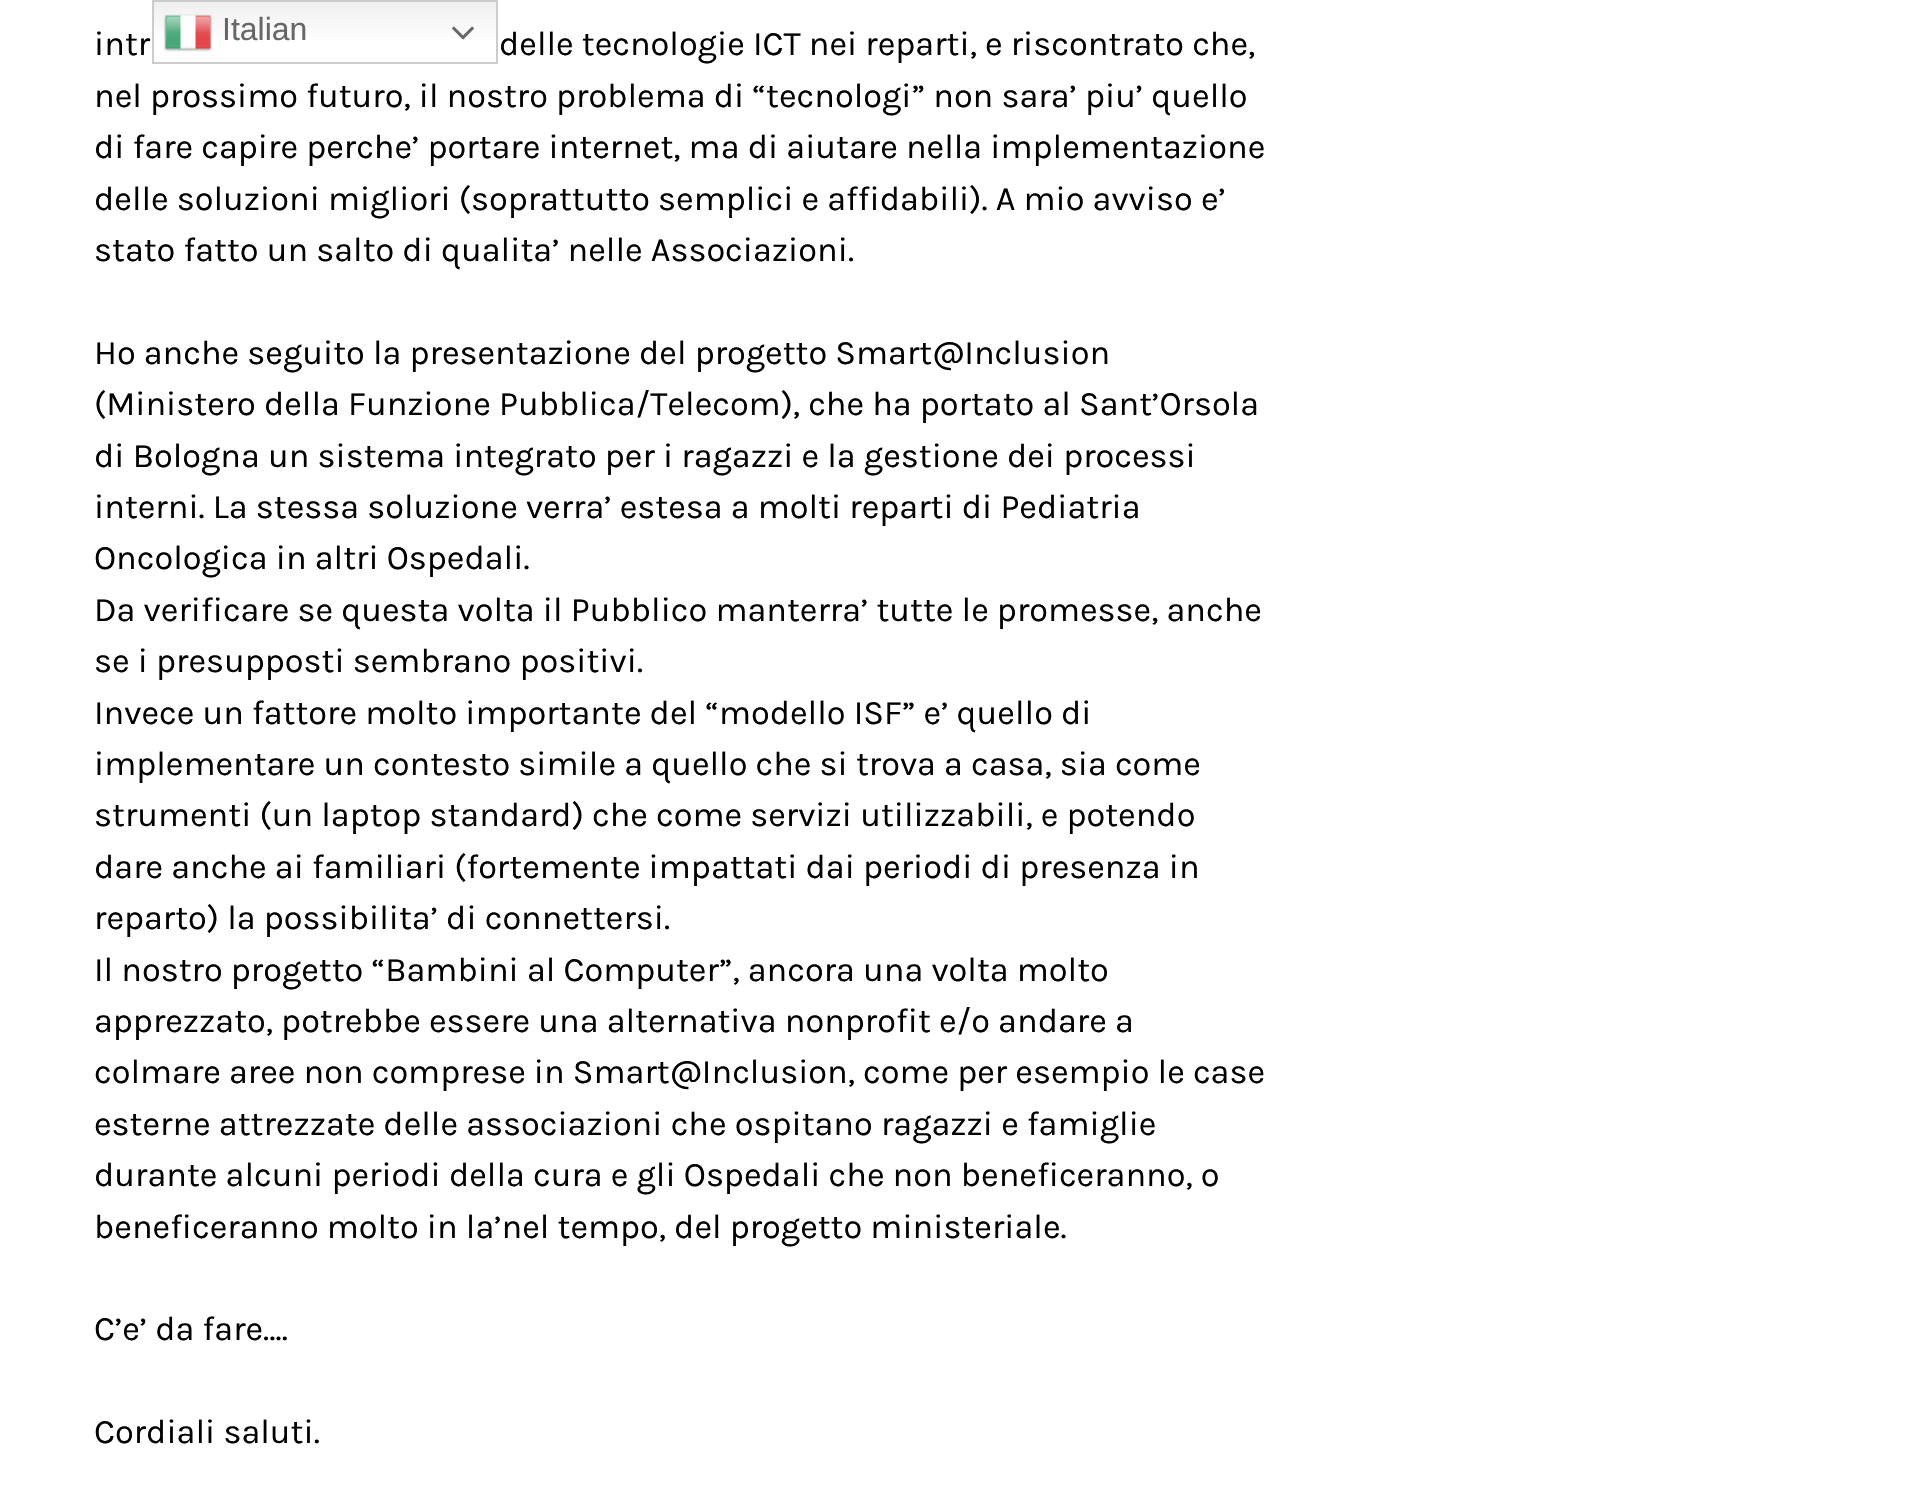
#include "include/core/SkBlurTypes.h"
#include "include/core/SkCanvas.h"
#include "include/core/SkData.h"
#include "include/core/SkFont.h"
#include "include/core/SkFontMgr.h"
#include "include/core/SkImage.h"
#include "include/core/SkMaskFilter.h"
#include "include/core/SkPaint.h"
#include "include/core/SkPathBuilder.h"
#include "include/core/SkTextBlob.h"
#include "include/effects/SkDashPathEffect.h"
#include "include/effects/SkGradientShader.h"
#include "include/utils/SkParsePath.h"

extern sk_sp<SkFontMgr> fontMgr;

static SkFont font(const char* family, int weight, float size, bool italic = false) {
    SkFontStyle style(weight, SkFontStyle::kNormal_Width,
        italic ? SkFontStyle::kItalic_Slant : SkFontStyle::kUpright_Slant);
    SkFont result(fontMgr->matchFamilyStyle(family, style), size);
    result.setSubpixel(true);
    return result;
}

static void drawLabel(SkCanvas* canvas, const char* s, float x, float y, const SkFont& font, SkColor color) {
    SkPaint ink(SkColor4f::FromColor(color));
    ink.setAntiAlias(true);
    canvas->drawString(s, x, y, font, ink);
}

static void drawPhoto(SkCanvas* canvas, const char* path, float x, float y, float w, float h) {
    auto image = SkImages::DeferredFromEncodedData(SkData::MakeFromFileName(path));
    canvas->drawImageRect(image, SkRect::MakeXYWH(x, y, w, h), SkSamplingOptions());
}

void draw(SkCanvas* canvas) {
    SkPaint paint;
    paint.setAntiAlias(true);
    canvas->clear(0xFFFFFFFF);
    {
        const SkColor colors[] = {0xFFEFEFEF, 0xFFFFFFFF};
        const float stops[] = {0, 0.7f};
        const SkPoint ends[] = {{325, 0}, {325, 64}};
        paint.setShader(SkGradientShader::MakeLinear(ends, colors, stops, 2, SkTileMode::kClamp));
        paint.setAlpha(255);
    }
    canvas->drawRect(SkRect::MakeXYWH(154, 2, 342, 36), paint);
    paint.setStroke(true);
    paint.setStrokeWidth(2);
    paint.setShader(nullptr);
    paint.setColor(0xFFCCCCCC);
    canvas->drawRect(SkRect::MakeXYWH(153, 1, 344, 62), paint);
    drawPhoto(canvas, "assets/img1.png", 164, 14, 48, 38);
    SkFont font1 = font("Liberation Sans", 400, 32);
    drawLabel(canvas, "Italian", 222, 40, font1, 0xFF666666);
    drawPhoto(canvas, "assets/img2.png", 452, 26, 22, 14);
    SkFont font2 = font("Karla", 400, 34.25f);
    drawLabel(canvas, "intr", 94, 55, font2, 0xFF000000);
    drawLabel(canvas, "delle tecnologie ICT nei reparti, e riscontrato che,", 499, 55, font2, 0xFF000000);
    drawLabel(canvas, "nel prossimo futuro, il nostro problema di “tecnologi” non sara’ piu’ quello", 94, 107, font2, 0xFF000000);
    drawLabel(canvas, "di fare capire perche’ portare internet, ma di aiutare nella implementazione", 94, 158, font2, 0xFF000000);
    drawLabel(canvas, "delle soluzioni migliori (soprattutto semplici e affidabili). A mio avviso e’", 94, 210, font2, 0xFF000000);
    drawLabel(canvas, "stato fatto un salto di qualita’ nelle Associazioni.", 94, 261, font2, 0xFF000000);
    drawLabel(canvas, "Ho anche seguito la presentazione del progetto Smart@Inclusion", 94, 364, font2, 0xFF000000);
    drawLabel(canvas, "(Ministero della Funzione Pubblica/Telecom), che ha portato al Sant’Orsola", 94, 415, font2, 0xFF000000);
    drawLabel(canvas, "di Bologna un sistema integrato per i ragazzi e la gestione dei processi", 94, 467, font2, 0xFF000000);
    drawLabel(canvas, "interni. La stessa soluzione verra’ estesa a molti reparti di Pediatria", 94, 518, font2, 0xFF000000);
    drawLabel(canvas, "Oncologica in altri Ospedali.", 94, 569, font2, 0xFF000000);
    drawLabel(canvas, "Da verificare se questa volta il Pubblico manterra’ tutte le promesse, anche", 94, 621, font2, 0xFF000000);
    drawLabel(canvas, "se i presupposti sembrano positivi.", 94, 672, font2, 0xFF000000);
    drawLabel(canvas, "Invece un fattore molto importante del “modello ISF” e’ quello di", 94, 724, font2, 0xFF000000);
    drawLabel(canvas, "implementare un contesto simile a quello che si trova a casa, sia come", 94, 775, font2, 0xFF000000);
    drawLabel(canvas, "strumenti (un laptop standard) che come servizi utilizzabili, e potendo", 94, 826, font2, 0xFF000000);
    drawLabel(canvas, "dare anche ai familiari (fortemente impattati dai periodi di presenza in", 94, 878, font2, 0xFF000000);
    drawLabel(canvas, "reparto) la possibilita’ di connettersi.", 94, 929, font2, 0xFF000000);
    drawLabel(canvas, "Il nostro progetto “Bambini al Computer”, ancora una volta molto", 94, 981, font2, 0xFF000000);
    drawLabel(canvas, "apprezzato, potrebbe essere una alternativa nonprofit e/o andare a", 94, 1032, font2, 0xFF000000);
    drawLabel(canvas, "colmare aree non comprese in Smart@Inclusion, come per esempio le case", 94, 1083, font2, 0xFF000000);
    drawLabel(canvas, "esterne attrezzate delle associazioni che ospitano ragazzi e famiglie", 94, 1135, font2, 0xFF000000);
    drawLabel(canvas, "durante alcuni periodi della cura e gli Ospedali che non beneficeranno, o", 94, 1186, font2, 0xFF000000);
    drawLabel(canvas, "beneficeranno molto in la’nel tempo, del progetto ministeriale.", 94, 1238, font2, 0xFF000000);
    drawLabel(canvas, "C’e’ da fare….", 94, 1340, font2, 0xFF000000);
    drawLabel(canvas, "Cordiali saluti.", 94, 1443, font2, 0xFF000000);
}
